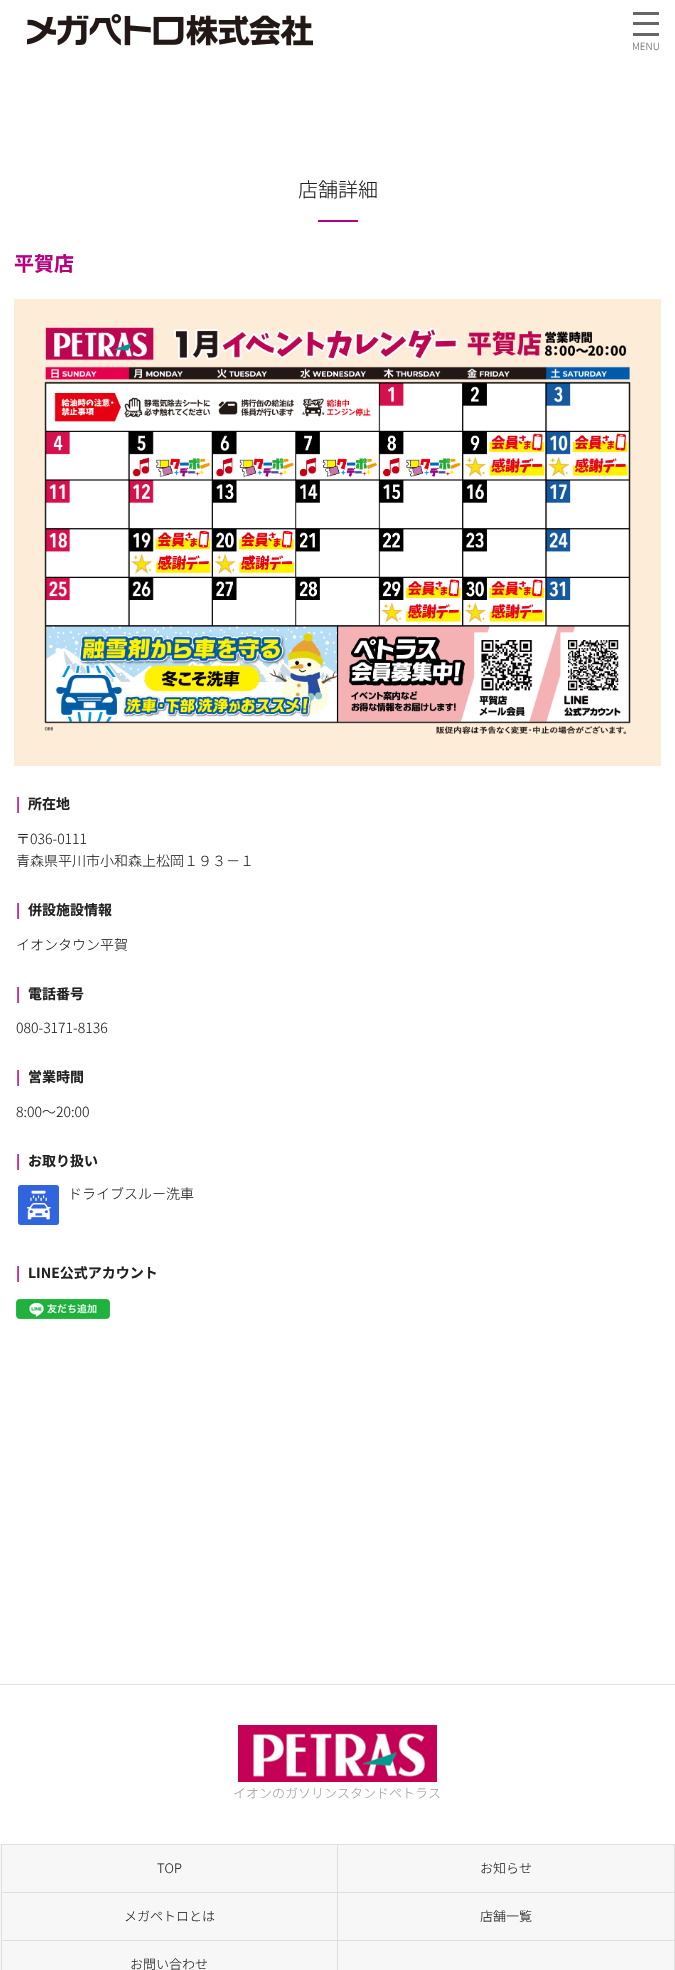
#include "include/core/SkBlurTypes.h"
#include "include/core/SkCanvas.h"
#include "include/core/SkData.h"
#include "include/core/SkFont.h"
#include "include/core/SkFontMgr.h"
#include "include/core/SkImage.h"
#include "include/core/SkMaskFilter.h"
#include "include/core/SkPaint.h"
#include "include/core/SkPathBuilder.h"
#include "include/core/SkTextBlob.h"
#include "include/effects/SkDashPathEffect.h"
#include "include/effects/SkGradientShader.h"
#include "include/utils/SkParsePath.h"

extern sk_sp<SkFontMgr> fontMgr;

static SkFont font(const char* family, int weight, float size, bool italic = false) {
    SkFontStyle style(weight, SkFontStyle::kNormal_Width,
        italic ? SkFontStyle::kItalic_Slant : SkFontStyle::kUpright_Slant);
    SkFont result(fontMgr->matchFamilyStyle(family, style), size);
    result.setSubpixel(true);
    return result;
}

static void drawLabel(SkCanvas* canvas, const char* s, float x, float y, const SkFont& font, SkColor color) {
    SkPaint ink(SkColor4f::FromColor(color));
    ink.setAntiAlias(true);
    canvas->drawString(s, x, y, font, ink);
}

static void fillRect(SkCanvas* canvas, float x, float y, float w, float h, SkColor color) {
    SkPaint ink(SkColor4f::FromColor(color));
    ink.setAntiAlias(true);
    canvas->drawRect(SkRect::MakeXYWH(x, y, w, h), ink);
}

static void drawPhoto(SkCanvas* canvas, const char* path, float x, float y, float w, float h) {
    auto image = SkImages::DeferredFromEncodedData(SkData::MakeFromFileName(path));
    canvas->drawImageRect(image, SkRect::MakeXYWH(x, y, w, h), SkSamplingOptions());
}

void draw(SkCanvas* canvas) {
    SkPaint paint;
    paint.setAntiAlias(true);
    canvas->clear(0xFFFFFFFF);
    drawPhoto(canvas, "assets/img1.png", 27, 14, 286, 32);
    fillRect(canvas, 633, 12, 26, 3, 0xFF666666);
    fillRect(canvas, 633, 22, 26, 3, 0xFF666666);
    fillRect(canvas, 633, 33, 26, 3, 0xFF666666);
    SkFont font1 = font("Noto Sans JP", 300, 10);
    drawLabel(canvas, "MENU", 632, 50, font1, 0xFF666666);
    SkFont font2 = font("Noto Sans JP", 300, 20);
    drawLabel(canvas, "店舗詳細", 298, 197, font2, 0xFF212121);
    fillRect(canvas, 318, 220, 40, 2, 0xFFB60081);
    SkFont font3 = font("Noto Sans JP", 700, 20);
    drawLabel(canvas, "平賀店", 14, 271, font3, 0xFFB60081);
    drawPhoto(canvas, "assets/img2.png", 14, 299, 647, 467);
    SkFont font4 = font("Noto Sans JP", 700, 14);
    drawLabel(canvas, "|", 16, 809, font4, 0xFFB60081);
    drawLabel(canvas, "所在地", 28, 809, font4, 0xFF212121);
    SkFont font5 = font("Noto Sans JP", 300, 14);
    drawLabel(canvas, "〒036-0111", 16, 844, font5, 0xFF212121);
    drawLabel(canvas, "青森県平川市小和森上松岡１９３－１", 16, 866, font5, 0xFF212121);
    drawLabel(canvas, "|", 16, 915, font4, 0xFFB60081);
    drawLabel(canvas, "併設施設情報", 28, 915, font4, 0xFF212121);
    drawLabel(canvas, "イオンタウン平賀", 16, 950, font5, 0xFF212121);
    drawLabel(canvas, "|", 16, 999, font4, 0xFFB60081);
    drawLabel(canvas, "電話番号", 28, 999, font4, 0xFF212121);
    drawLabel(canvas, "080-3171-8136", 16, 1033, font5, 0xFF212121);
    drawLabel(canvas, "|", 16, 1082, font4, 0xFFB60081);
    drawLabel(canvas, "営業時間", 28, 1082, font4, 0xFF212121);
    drawLabel(canvas, "8:00～20:00", 16, 1117, font5, 0xFF212121);
    drawLabel(canvas, "|", 16, 1166, font4, 0xFFB60081);
    drawLabel(canvas, "お取り扱い", 28, 1166, font4, 0xFF212121);
    drawPhoto(canvas, "assets/img3.png", 18, 1185, 41, 40);
    drawLabel(canvas, "ドライブスルー洗車", 68, 1199, font5, 0xFF212121);
    drawLabel(canvas, "|", 16, 1278, font4, 0xFFB60081);
    drawLabel(canvas, "LINE公式アカウント", 28, 1278, font4, 0xFF212121);
    drawPhoto(canvas, "assets/img4.png", 16, 1299, 94, 20);
    fillRect(canvas, 0, 1684, 675, 1, 0xFFE3E3E3);
    drawPhoto(canvas, "assets/img5.png", 238, 1725, 199, 57);
    SkFont font6 = font("Noto Sans JP", 300, 13);
    drawLabel(canvas, "イオンのガソリンスタンドペトラス", 233, 1798, font6, 0xFF9E9E9E);
    fillRect(canvas, 0, 1844, 674, 126, 0xFFF7F7F7);
    paint.setStroke(true);
    paint.setStrokeWidth(1);
    paint.setColor(0xFFE0DFDF);
    canvas->drawRect(SkRect::MakeXYWH(1.5f, 1844.5f, 336, 48), paint);
    drawLabel(canvas, "TOP", 157, 1873, font6, 0xFF212121);
    fillRect(canvas, 338, 1844, 337, 1, 0xFFE0DFDF);
    fillRect(canvas, 674, 1844, 1, 126, 0xFFE0DFDF);
    fillRect(canvas, 338, 1892, 337, 1, 0xFFE0DFDF);
    drawLabel(canvas, "お知らせ", 480, 1873, font6, 0xFF212121);
    fillRect(canvas, 337, 1893, 1, 77, 0xFFE0DFDF);
    fillRect(canvas, 1, 1940, 674, 1, 0xFFE0DFDF);
    fillRect(canvas, 1, 1893, 1, 77, 0xFFE0DFDF);
    drawLabel(canvas, "メガペトロとは", 124, 1921, font6, 0xFF212121);
    drawLabel(canvas, "店舗一覧", 480, 1921, font6, 0xFF212121);
    drawLabel(canvas, "お問い合わせ", 130, 1969, font6, 0xFF212121);
}
